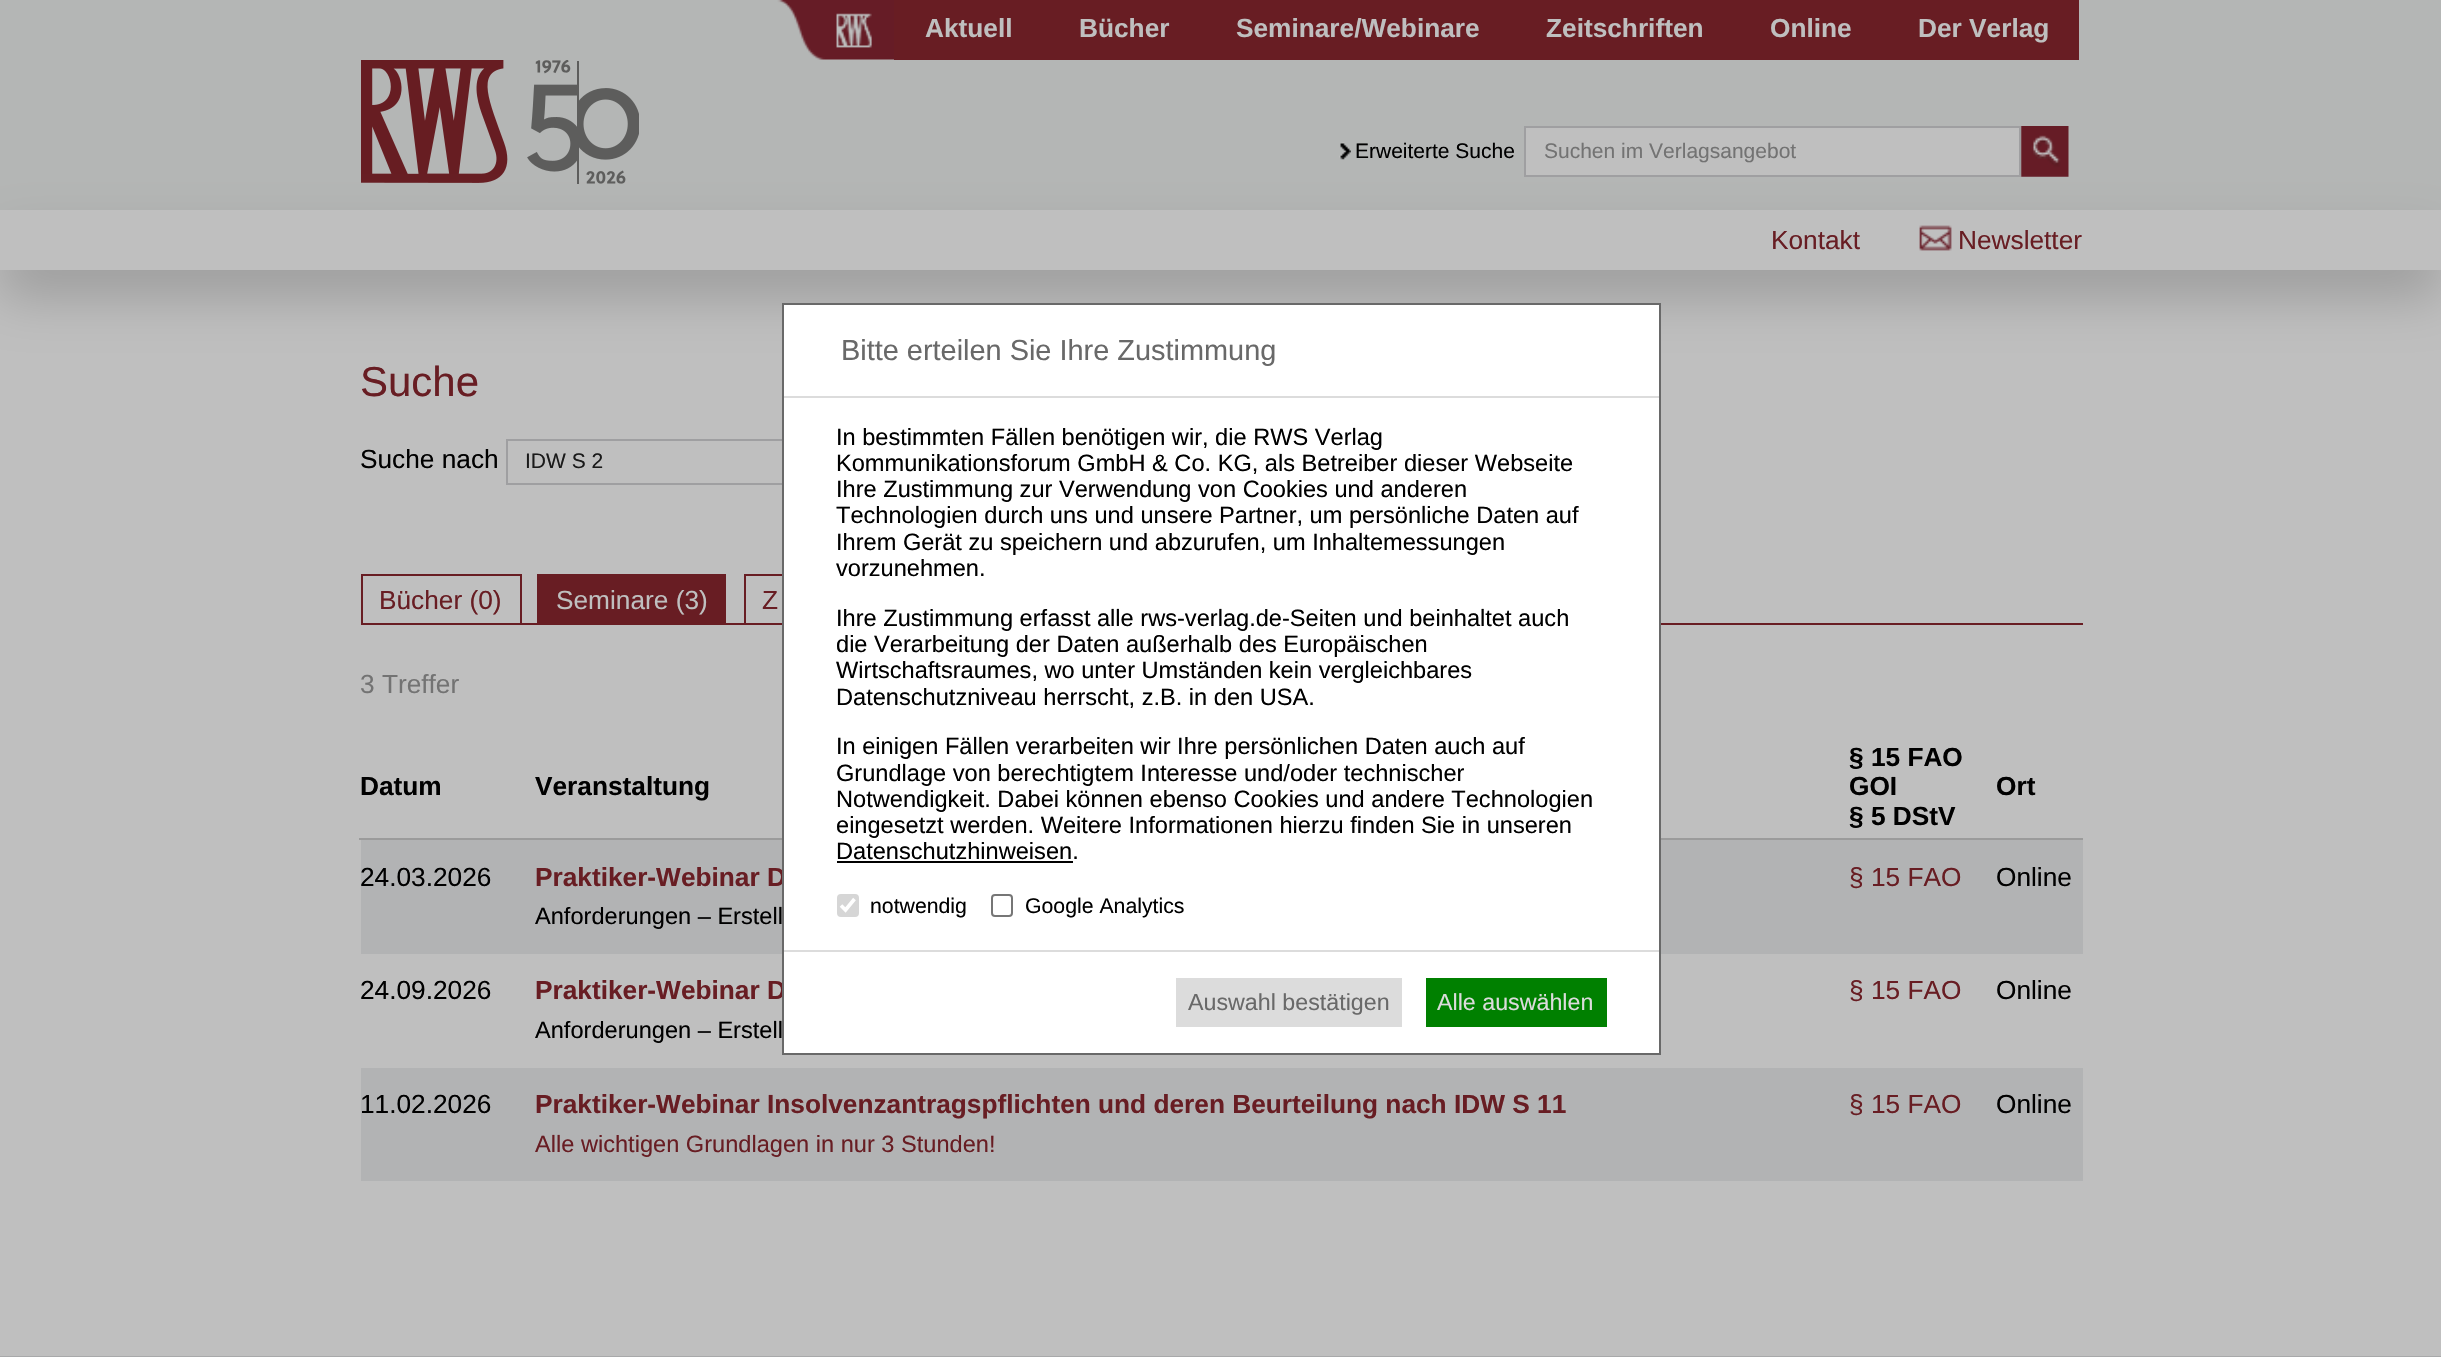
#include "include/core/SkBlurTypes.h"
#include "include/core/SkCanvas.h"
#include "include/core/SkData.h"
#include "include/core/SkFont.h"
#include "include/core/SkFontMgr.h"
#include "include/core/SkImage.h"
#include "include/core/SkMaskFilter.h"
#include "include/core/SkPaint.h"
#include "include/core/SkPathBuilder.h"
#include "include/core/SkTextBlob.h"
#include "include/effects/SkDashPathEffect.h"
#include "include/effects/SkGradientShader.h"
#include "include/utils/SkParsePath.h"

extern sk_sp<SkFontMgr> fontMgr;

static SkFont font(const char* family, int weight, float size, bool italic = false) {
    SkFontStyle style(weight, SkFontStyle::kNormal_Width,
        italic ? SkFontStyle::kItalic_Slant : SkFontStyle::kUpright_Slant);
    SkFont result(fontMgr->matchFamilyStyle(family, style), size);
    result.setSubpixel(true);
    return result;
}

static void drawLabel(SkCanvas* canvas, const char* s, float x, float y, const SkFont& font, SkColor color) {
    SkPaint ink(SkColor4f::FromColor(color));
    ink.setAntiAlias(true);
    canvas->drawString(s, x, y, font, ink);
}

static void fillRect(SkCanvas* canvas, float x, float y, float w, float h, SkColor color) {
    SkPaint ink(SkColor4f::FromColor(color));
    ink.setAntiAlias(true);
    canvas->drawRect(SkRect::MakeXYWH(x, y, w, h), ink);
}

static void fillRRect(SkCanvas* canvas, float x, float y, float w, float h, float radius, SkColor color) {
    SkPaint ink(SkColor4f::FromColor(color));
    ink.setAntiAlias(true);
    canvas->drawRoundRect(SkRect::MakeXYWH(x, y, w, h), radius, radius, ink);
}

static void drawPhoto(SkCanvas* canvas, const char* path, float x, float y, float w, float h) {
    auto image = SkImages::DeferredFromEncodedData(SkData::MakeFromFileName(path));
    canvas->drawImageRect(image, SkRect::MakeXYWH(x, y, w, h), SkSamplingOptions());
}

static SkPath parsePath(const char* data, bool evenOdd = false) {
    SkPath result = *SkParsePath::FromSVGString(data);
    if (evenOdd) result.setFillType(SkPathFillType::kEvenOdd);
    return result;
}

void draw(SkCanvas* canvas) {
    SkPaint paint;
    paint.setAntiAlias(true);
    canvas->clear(0xFFBFBFBF);
    fillRect(canvas, 0, 0, 2441, 210, 0xFFB4B6B5);
    drawPhoto(canvas, "assets/img1.png", 777, 0, 117, 60);
    drawPhoto(canvas, "assets/img2.png", 836, 13, 36, 35);
    fillRect(canvas, 894, 0, 1185, 60, 0xFF681D23);
    SkFont font1 = font("Liberation Sans", 700, 26.25f);
    drawLabel(canvas, "Aktuell", 925, 37, font1, 0xFFBFBFBF);
    drawLabel(canvas, "Bücher", 1079, 37, font1, 0xFFBFBFBF);
    drawLabel(canvas, "Seminare/Webinare", 1236, 37, font1, 0xFFBFBFBF);
    drawLabel(canvas, "Zeitschriften", 1546, 37, font1, 0xFFBFBFBF);
    drawLabel(canvas, "Online", 1770, 37, font1, 0xFFBFBFBF);
    drawLabel(canvas, "Der Verlag", 1918, 37, font1, 0xFFBFBFBF);
    drawPhoto(canvas, "assets/img3.png", 361, 60, 278, 124);
    drawPhoto(canvas, "assets/img4.png", 1339, 142, 12, 18);
    SkFont font2 = font("Liberation Sans", 400, 21);
    drawLabel(canvas, "Erweiterte Suche", 1355, 158, font2, 0xFF000000);
    paint.setColor(0xFFBFBFBF);
    canvas->drawRect(SkRect::MakeXYWH(1525, 127, 495, 49), paint);
    paint.setStroke(true);
    paint.setStrokeWidth(2);
    paint.setColor(0xFF9F9FA1);
    canvas->drawRect(SkRect::MakeXYWH(1525, 127, 495, 49), paint);
    drawLabel(canvas, "Suchen im Verlagsangebot", 1544, 158, font2, 0xFF737373);
    drawPhoto(canvas, "assets/img5.png", 2021, 126, 48, 51);
    canvas->save();
    canvas->clipPath(parsePath("M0 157H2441V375H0ZM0 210H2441V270H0Z", true), true);
    paint.setStroke(false);
    paint.setColor(0xFF9B9B9B);
    paint.setMaskFilter(SkMaskFilter::MakeBlur(kNormal_SkBlurStyle, 26));
    canvas->drawRect(SkRect::MakeXYWH(0, 236, 2441, 60), paint);
    paint.setMaskFilter(nullptr);
    canvas->restore();
    SkFont font3 = font("Liberation Sans", 400, 26.25f);
    drawLabel(canvas, "Kontakt", 1771, 249, font3, 0xFF681D23);
    drawPhoto(canvas, "assets/img6.png", 1919, 225, 33, 26);
    drawLabel(canvas, "Newsletter", 1958, 249, font3, 0xFF681D23);
    paint.setStroke(true);
    paint.setColor(0xFF9F9FA1);
    canvas->drawRect(SkRect::MakeXYWH(507, 440, 474, 44), paint);
    fillRect(canvas, 522, 623, 1561, 2, 0xFF681D23);
    paint.setColor(0xFF681D23);
    canvas->drawRect(SkRect::MakeXYWH(745, 575, 232, 49), paint);
    fillRect(canvas, 359, 838, 1724, 2, 0xFF9B9B9B);
    fillRect(canvas, 361, 840, 1722, 114, 0xFFB2B3B4);
    drawLabel(canvas, "Praktiker-Webinar D", 535, 886, font1, 0xFF681D23);
    drawLabel(canvas, "Praktiker-Webinar D", 535, 999, font1, 0xFF681D23);
    paint.setStroke(false);
    paint.setColor(0xFFFFFFFF);
    canvas->drawRect(SkRect::MakeXYWH(783, 304, 877, 750), paint);
    paint.setStroke(true);
    paint.setColor(0xFF696969);
    canvas->drawRect(SkRect::MakeXYWH(783, 304, 877, 750), paint);
    fillRect(canvas, 784, 396, 875, 2, 0xFFDCDCDC);
    SkFont font4 = font("Liberation Sans", 400, 28.9f);
    drawLabel(canvas, "Bitte erteilen Sie Ihre Zustimmung", 841, 360, font4, 0xFF696969);
    SkFont font5 = font("Liberation Sans", 400, 23.6f);
    drawLabel(canvas, "In bestimmten Fällen benötigen wir, die RWS Verlag", 836, 445, font5, 0xFF000000);
    drawLabel(canvas, "Kommunikationsforum GmbH & Co. KG, als Betreiber dieser Webseite", 836, 471, font5, 0xFF000000);
    drawLabel(canvas, "Ihre Zustimmung zur Verwendung von Cookies und anderen", 836, 497, font5, 0xFF000000);
    drawLabel(canvas, "Technologien durch uns und unsere Partner, um persönliche Daten auf", 836, 523, font5, 0xFF000000);
    drawLabel(canvas, "Ihrem Gerät zu speichern und abzurufen, um Inhaltemessungen", 836, 550, font5, 0xFF000000);
    drawLabel(canvas, "vorzunehmen.", 836, 576, font5, 0xFF000000);
    drawLabel(canvas, "Ihre Zustimmung erfasst alle rws-verlag.de-Seiten und beinhaltet auch", 836, 626, font5, 0xFF000000);
    drawLabel(canvas, "die Verarbeitung der Daten außerhalb des Europäischen", 836, 652, font5, 0xFF000000);
    drawLabel(canvas, "Wirtschaftsraumes, wo unter Umständen kein vergleichbares", 836, 678, font5, 0xFF000000);
    drawLabel(canvas, "Datenschutzniveau herrscht, z.B. in den USA.", 836, 705, font5, 0xFF000000);
    drawLabel(canvas, "In einigen Fällen verarbeiten wir Ihre persönlichen Daten auch auf", 836, 754, font5, 0xFF000000);
    drawLabel(canvas, "Grundlage von berechtigtem Interesse und/oder technischer", 836, 781, font5, 0xFF000000);
    drawLabel(canvas, "Notwendigkeit. Dabei können ebenso Cookies und andere Technologien", 836, 807, font5, 0xFF000000);
    drawLabel(canvas, "eingesetzt werden. Weitere Informationen hierzu finden Sie in unseren", 836, 833, font5, 0xFF000000);
    drawLabel(canvas, "Datenschutzhinweisen.", 836, 859, font5, 0xFF000000);
    fillRect(canvas, 837, 861, 236, 2, 0xFF000000);
    fillRRect(canvas, 837, 894, 22, 23, 4, 0xFFD6D6D6);
    paint.setStrokeWidth(3.6f);
    paint.setColor(0xFFFFFFFF);
    canvas->drawPath(parsePath("M841 905.5L845.5 910L854.5 899"), paint);
    SkFont font6 = font("Liberation Sans", 400, 21.25f);
    drawLabel(canvas, "notwendig", 870, 913, font6, 0xFF000000);
    paint.setStrokeWidth(2);
    paint.setColor(0xFF767676);
    canvas->drawRoundRect(SkRect::MakeXYWH(992, 895, 20, 21), 3, 3, paint);
    drawLabel(canvas, "Google Analytics", 1025, 913, font6, 0xFF000000);
    fillRect(canvas, 784, 950, 875, 2, 0xFFDCDCDC);
    fillRect(canvas, 1176, 978, 226, 49, 0xFFDCDCDC);
    SkFont font7 = font("Liberation Sans", 400, 23.25f);
    drawLabel(canvas, "Auswahl bestätigen", 1188, 1010, font7, 0xFF696969);
    fillRect(canvas, 1426, 978, 181, 49, 0xFF008000);
    drawLabel(canvas, "Alle auswählen", 1437, 1010, font7, 0xFFDCDCDC);
    SkFont font8 = font("Liberation Sans", 400, 42);
    drawLabel(canvas, "Suche", 360, 396, font8, 0xFF681D23);
    drawLabel(canvas, "Suche nach", 360, 468, font3, 0xFF000000);
    drawLabel(canvas, "IDW S 2", 525, 468, font2, 0xFF1A1A1A);
    paint.setColor(0xFF681D23);
    canvas->drawRect(SkRect::MakeXYWH(362, 575, 159, 49), paint);
    drawLabel(canvas, "Bücher (0)", 379, 609, font3, 0xFF681D23);
    fillRect(canvas, 537, 574, 189, 49, 0xFF681D23);
    drawLabel(canvas, "Seminare (3)", 556, 609, font3, 0xFFBFBFBF);
    drawLabel(canvas, "Z", 762, 609, font3, 0xFF681D23);
    drawLabel(canvas, "3 Treffer", 360, 693, font3, 0xFF737373);
    drawLabel(canvas, "Datum", 360, 795, font1, 0xFF000000);
    drawLabel(canvas, "Veranstaltung", 535, 795, font1, 0xFF000000);
    drawLabel(canvas, "§ 15 FAO", 1849, 766, font1, 0xFF000000);
    drawLabel(canvas, "GOI", 1849, 795, font1, 0xFF000000);
    drawLabel(canvas, "§ 5 DStV", 1849, 825, font1, 0xFF000000);
    drawLabel(canvas, "Ort", 1996, 795, font1, 0xFF000000);
    drawLabel(canvas, "24.03.2026", 360, 886, font3, 0xFF000000);
    drawLabel(canvas, "Anforderungen – Erstell", 535, 924, font5, 0xFF000000);
    drawLabel(canvas, "§ 15 FAO", 1849, 886, font3, 0xFF681D23);
    drawLabel(canvas, "Online", 1996, 886, font3, 0xFF000000);
    drawLabel(canvas, "24.09.2026", 360, 999, font3, 0xFF000000);
    drawLabel(canvas, "Anforderungen – Erstell", 535, 1038, font5, 0xFF000000);
    drawLabel(canvas, "§ 15 FAO", 1849, 999, font3, 0xFF681D23);
    drawLabel(canvas, "Online", 1996, 999, font3, 0xFF000000);
    fillRect(canvas, 361, 1068, 1722, 113, 0xFFB2B3B4);
    drawLabel(canvas, "11.02.2026", 360, 1113, font3, 0xFF000000);
    drawLabel(canvas, "Praktiker-Webinar Insolvenzantragspflichten und deren Beurteilung nach IDW S 11", 535, 1113, font1, 0xFF681D23);
    drawLabel(canvas, "Alle wichtigen Grundlagen in nur 3 Stunden!", 535, 1152, font5, 0xFF681D23);
    drawLabel(canvas, "§ 15 FAO", 1849, 1113, font3, 0xFF681D23);
    drawLabel(canvas, "Online", 1996, 1113, font3, 0xFF000000);
    fillRect(canvas, 0, 1356, 2441, 1, 0xFFA8A9AA);
}
